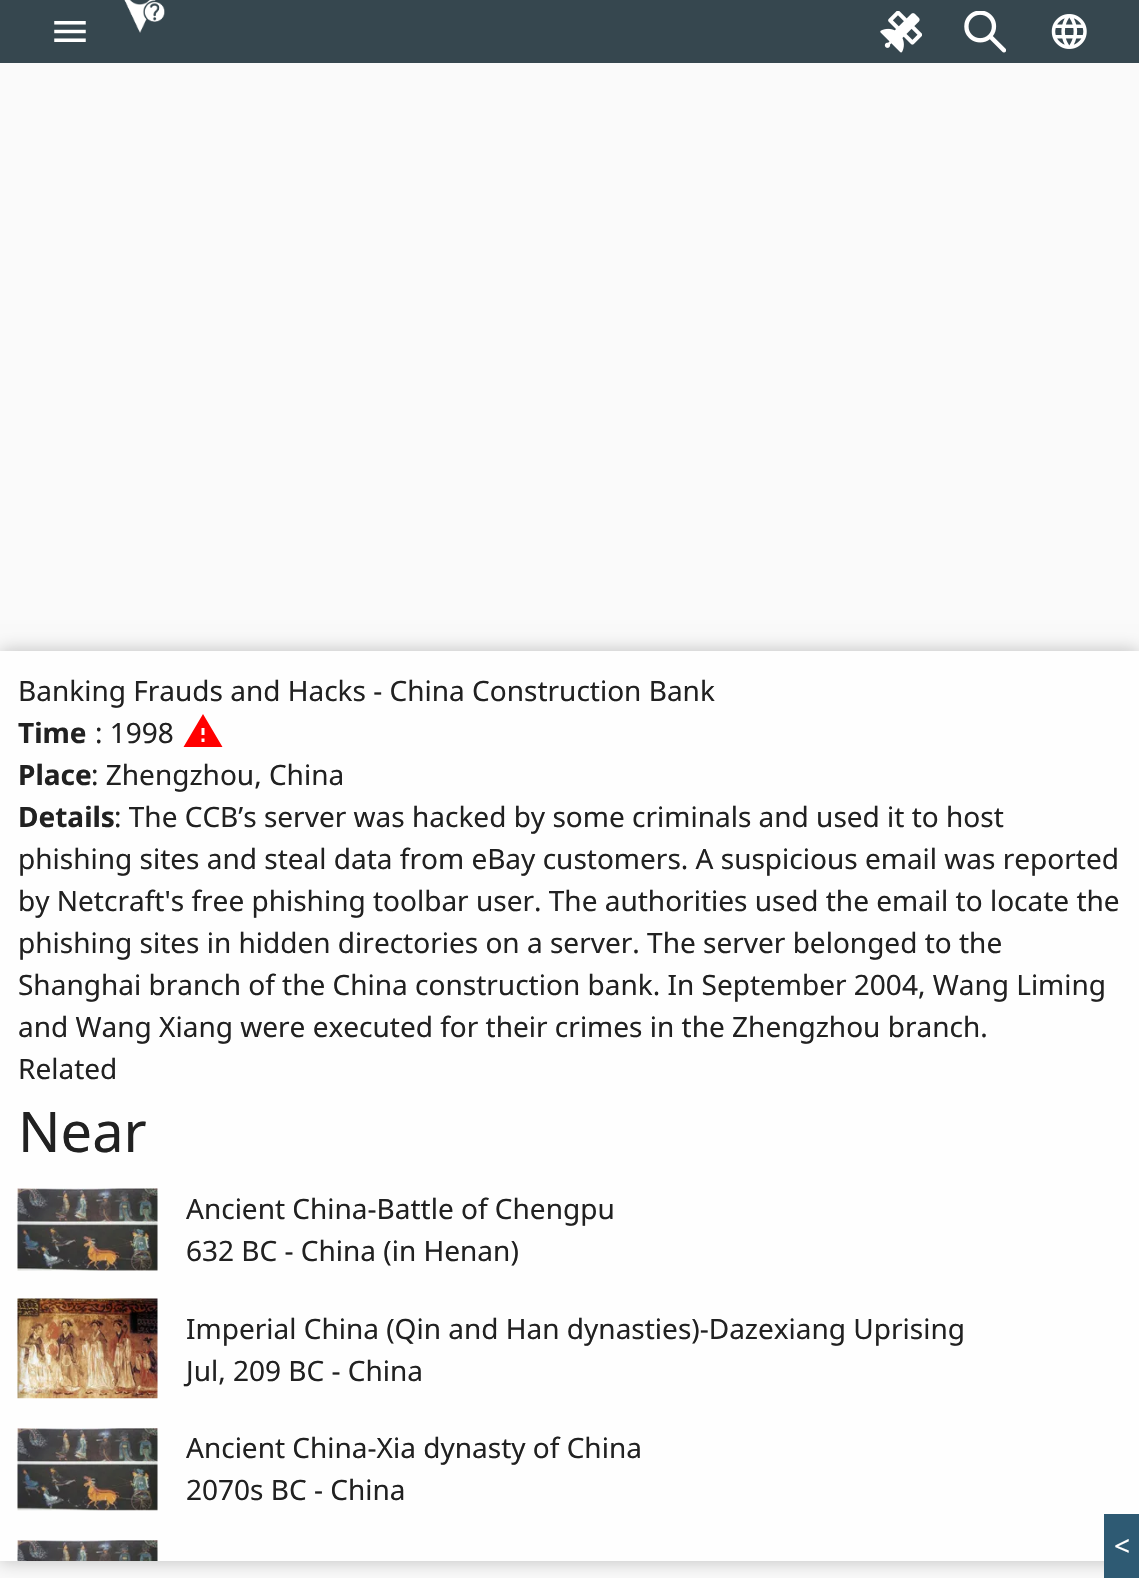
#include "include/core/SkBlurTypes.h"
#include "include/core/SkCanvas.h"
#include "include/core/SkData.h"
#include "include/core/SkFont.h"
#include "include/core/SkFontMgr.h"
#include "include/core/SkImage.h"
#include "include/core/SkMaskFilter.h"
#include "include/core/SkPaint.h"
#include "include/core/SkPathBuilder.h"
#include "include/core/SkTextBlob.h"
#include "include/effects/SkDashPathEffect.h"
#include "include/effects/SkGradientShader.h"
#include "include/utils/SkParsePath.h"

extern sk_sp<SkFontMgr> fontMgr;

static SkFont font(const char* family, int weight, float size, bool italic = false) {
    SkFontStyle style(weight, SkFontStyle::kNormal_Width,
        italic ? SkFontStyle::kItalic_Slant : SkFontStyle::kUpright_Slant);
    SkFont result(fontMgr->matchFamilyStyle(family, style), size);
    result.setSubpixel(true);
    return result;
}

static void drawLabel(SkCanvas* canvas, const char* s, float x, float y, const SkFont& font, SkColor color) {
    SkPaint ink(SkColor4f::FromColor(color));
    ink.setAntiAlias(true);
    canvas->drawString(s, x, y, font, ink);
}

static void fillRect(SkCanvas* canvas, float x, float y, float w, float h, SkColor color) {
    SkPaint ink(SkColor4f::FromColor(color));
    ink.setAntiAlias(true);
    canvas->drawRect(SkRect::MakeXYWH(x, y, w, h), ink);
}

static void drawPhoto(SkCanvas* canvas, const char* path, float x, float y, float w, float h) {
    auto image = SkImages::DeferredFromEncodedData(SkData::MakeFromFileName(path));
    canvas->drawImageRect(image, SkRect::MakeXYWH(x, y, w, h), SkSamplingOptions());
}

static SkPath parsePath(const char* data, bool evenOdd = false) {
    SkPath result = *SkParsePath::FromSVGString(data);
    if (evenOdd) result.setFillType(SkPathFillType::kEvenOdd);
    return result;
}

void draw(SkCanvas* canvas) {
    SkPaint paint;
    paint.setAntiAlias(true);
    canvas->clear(0xFFFAFAFA);
    fillRect(canvas, 0, 0, 1139, 63, 0xFF36474F);
    drawPhoto(canvas, "assets/img1.png", 54, 21, 32, 21);
    drawPhoto(canvas, "assets/img2.png", 124, 0, 41, 33);
    drawPhoto(canvas, "assets/img3.png", 880, 11, 42, 42);
    drawPhoto(canvas, "assets/img4.png", 964, 11, 42, 42);
    drawPhoto(canvas, "assets/img5.png", 1051, 14, 36, 35);
    paint.setColor(0x40000000);
    paint.setMaskFilter(SkMaskFilter::MakeBlur(kNormal_SkBlurStyle, 9));
    canvas->drawRect(SkRect::MakeXYWH(0, 651, 1139, 910), paint);
    paint.setMaskFilter(nullptr);
    fillRect(canvas, 0, 651, 1139, 910, 0xFFFEFEFE);
    SkFont font1 = font("Noto Sans", 400, 28);
    drawLabel(canvas, "Banking Frauds and Hacks - China Construction Bank", 18, 701, font1, 0xFF212121);
    SkFont font2 = font("Noto Sans", 700, 28);
    drawLabel(canvas, "Time", 18, 743, font2, 0xFF212121);
    drawLabel(canvas, ": 1998", 95, 743, font1, 0xFF212121);
    paint.setColor(0xFFFF0000);
    canvas->drawPath(parsePath("M204.5 735V728H201.5V735ZM204.5 742V738.5H201.5V742ZM183.5 747L203 714L222.5 747Z"), paint);
    drawLabel(canvas, "Place", 18, 785, font2, 0xFF212121);
    drawLabel(canvas, ": Zhengzhou, China", 91, 785, font1, 0xFF212121);
    drawLabel(canvas, "Details", 18, 827, font2, 0xFF212121);
    drawLabel(canvas, ": The CCB’s server was hacked by some criminals and used it to host", 114, 827, font1, 0xFF212121);
    drawLabel(canvas, "phishing sites and steal data from eBay customers. A suspicious email was reported", 18, 869, font1, 0xFF212121);
    drawLabel(canvas, "by Netcraft's free phishing toolbar user. The authorities used the email to locate the", 18, 911, font1, 0xFF212121);
    drawLabel(canvas, "phishing sites in hidden directories on a server. The server belonged to the", 18, 953, font1, 0xFF212121);
    drawLabel(canvas, "Shanghai branch of the China construction bank. In September 2004, Wang Liming", 18, 995, font1, 0xFF212121);
    drawLabel(canvas, "and Wang Xiang were executed for their crimes in the Zhengzhou branch.", 18, 1037, font1, 0xFF212121);
    drawLabel(canvas, "Related", 18, 1079, font1, 0xFF212121);
    SkFont font3 = font("Noto Sans", 400, 56);
    drawLabel(canvas, "Near", 18, 1152, font3, 0xFF212121);
    drawPhoto(canvas, "assets/img6.png", 17, 1188, 141, 83);
    drawLabel(canvas, "Ancient China-Battle of Chengpu", 186, 1219, font1, 0xFF212121);
    drawLabel(canvas, "632 BC - China (in Henan)", 186, 1261, font1, 0xFF212121);
    drawPhoto(canvas, "assets/img7.png", 17, 1298, 141, 101);
    drawLabel(canvas, "Imperial China (Qin and Han dynasties)-Dazexiang Uprising", 186, 1339, font1, 0xFF212121);
    drawLabel(canvas, "Jul, 209 BC - China", 186, 1381, font1, 0xFF212121);
    drawPhoto(canvas, "assets/img8.png", 17, 1428, 141, 83);
    drawLabel(canvas, "Ancient China-Xia dynasty of China", 186, 1458, font1, 0xFF212121);
    drawLabel(canvas, "2070s BC - China", 186, 1500, font1, 0xFF212121);
    drawPhoto(canvas, "assets/img9.png", 17, 1540, 141, 21);
    fillRect(canvas, 1104, 1514, 35, 64, 0xFF2E5A73);
    drawLabel(canvas, "<", 1114, 1556, font1, 0xFFFFFFFF);
}
